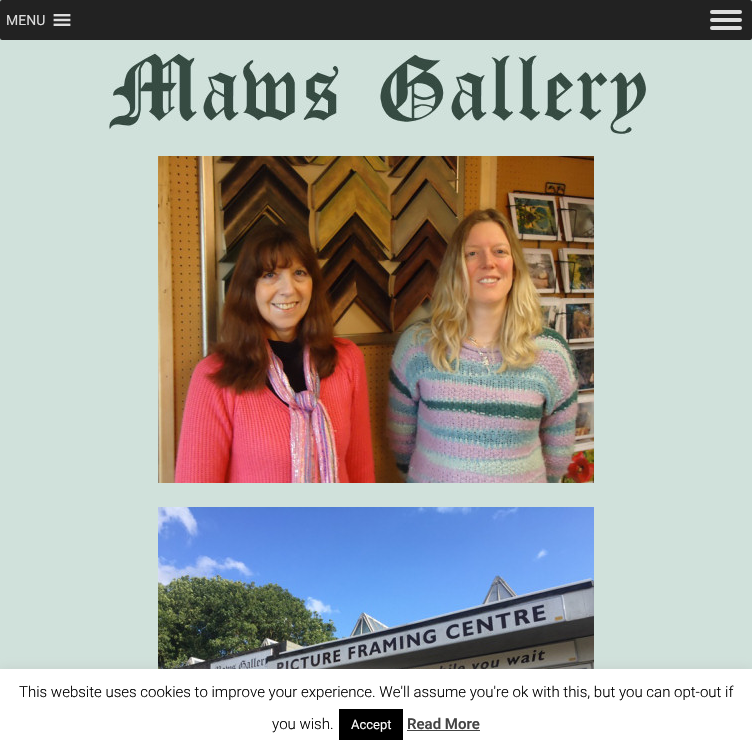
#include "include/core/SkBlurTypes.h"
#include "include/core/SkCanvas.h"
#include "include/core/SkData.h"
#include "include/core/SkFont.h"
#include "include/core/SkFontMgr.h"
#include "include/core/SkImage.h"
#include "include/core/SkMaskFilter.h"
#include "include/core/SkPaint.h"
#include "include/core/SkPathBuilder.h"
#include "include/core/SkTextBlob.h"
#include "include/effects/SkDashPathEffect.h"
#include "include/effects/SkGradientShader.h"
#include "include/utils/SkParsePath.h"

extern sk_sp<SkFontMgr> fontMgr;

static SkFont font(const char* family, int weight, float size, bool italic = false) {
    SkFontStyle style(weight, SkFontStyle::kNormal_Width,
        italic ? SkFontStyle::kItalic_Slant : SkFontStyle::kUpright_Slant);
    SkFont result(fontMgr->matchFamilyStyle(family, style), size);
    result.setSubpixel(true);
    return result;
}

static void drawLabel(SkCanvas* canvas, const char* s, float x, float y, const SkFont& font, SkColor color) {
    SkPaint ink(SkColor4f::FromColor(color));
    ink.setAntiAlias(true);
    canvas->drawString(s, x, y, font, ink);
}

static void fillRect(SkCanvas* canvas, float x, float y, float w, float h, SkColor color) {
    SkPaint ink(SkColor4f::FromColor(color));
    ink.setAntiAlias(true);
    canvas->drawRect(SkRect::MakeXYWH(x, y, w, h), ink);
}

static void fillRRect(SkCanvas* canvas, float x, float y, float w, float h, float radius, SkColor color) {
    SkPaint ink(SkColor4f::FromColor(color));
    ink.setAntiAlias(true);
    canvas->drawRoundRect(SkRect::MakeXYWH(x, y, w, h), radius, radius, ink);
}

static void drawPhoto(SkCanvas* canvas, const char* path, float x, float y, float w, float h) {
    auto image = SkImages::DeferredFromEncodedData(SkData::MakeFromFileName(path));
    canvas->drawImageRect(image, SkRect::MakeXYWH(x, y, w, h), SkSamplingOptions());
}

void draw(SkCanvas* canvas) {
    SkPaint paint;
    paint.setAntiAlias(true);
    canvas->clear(0xFFD0E1DB);
    fillRRect(canvas, 0, 0, 752, 40, 2, 0xFF222222);
    SkFont font1 = font("Roboto", 400, 14);
    drawLabel(canvas, "MENU", 6, 25, font1, 0xFFDDDDDD);
    drawPhoto(canvas, "assets/img1.png", 53, 14, 18, 12);
    fillRRect(canvas, 710, 10, 32, 4, 2, 0xFFDDDDDD);
    fillRRect(canvas, 710, 18, 32, 4, 2, 0xFFDDDDDD);
    fillRRect(canvas, 710, 26, 32, 4, 2, 0xFFDDDDDD);
    drawPhoto(canvas, "assets/img2.png", 109, 50, 538, 86);
    drawPhoto(canvas, "assets/img3.png", 158, 156, 436, 327);
    drawPhoto(canvas, "assets/img4.png", 158, 507, 436, 162);
    paint.setColor(0x4DACABAB);
    paint.setMaskFilter(SkMaskFilter::MakeBlur(kNormal_SkBlurStyle, 5));
    canvas->drawRect(SkRect::MakeXYWH(0, 668, 752, 83), paint);
    paint.setMaskFilter(nullptr);
    fillRect(canvas, 0, 669, 752, 83, 0xFFFFFFFF);
    SkFont font2 = font("Roboto", 300, 15);
    drawLabel(canvas, "This website uses cookies to improve your experience. We'll assume you're ok with this, but you can opt-out if", 19, 697, font2, 0xFF000000);
    drawLabel(canvas, "you wish.", 272, 729, font2, 0xFF000000);
    fillRect(canvas, 339, 709, 64, 31, 0xFF000000);
    SkFont font3 = font("Roboto", 400, 13);
    drawLabel(canvas, "Accept", 351, 729, font3, 0xFFFFFFFF);
    SkFont font4 = font("Roboto", 600, 15);
    drawLabel(canvas, "Read More", 407, 729, font4, 0xFF444444);
    fillRect(canvas, 407, 730, 73, 1, 0xFF444444);
}
